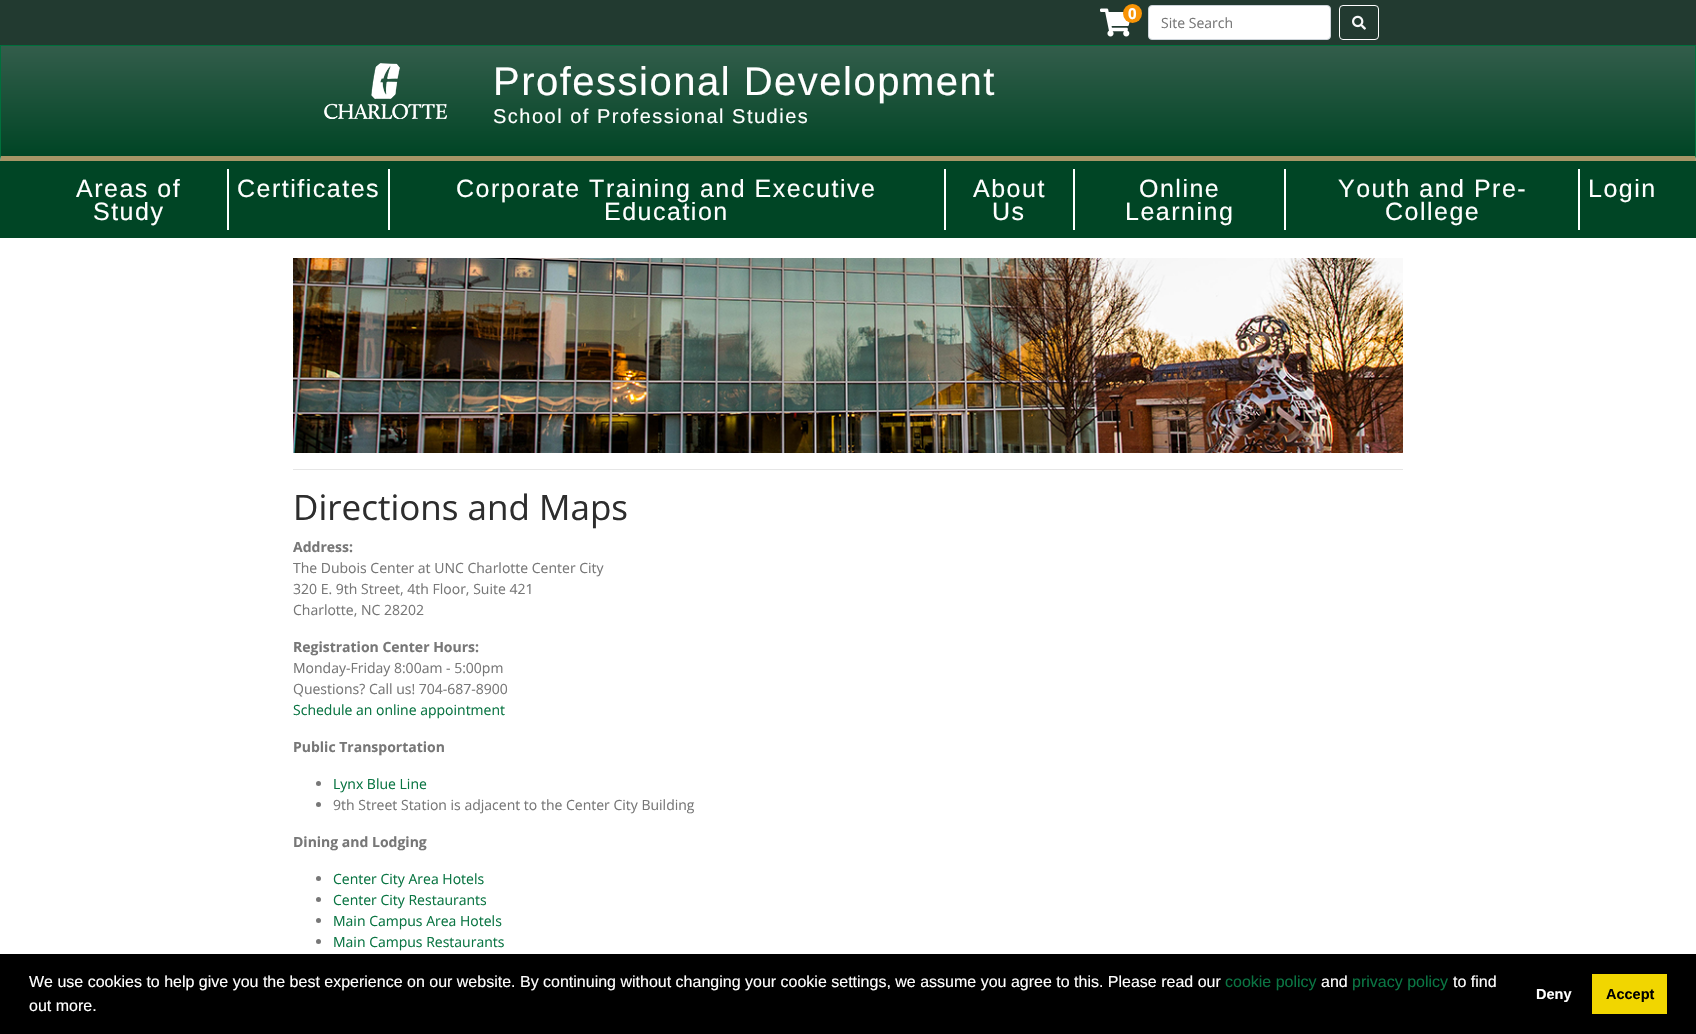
#include "include/core/SkBlurTypes.h"
#include "include/core/SkCanvas.h"
#include "include/core/SkData.h"
#include "include/core/SkFont.h"
#include "include/core/SkFontMgr.h"
#include "include/core/SkImage.h"
#include "include/core/SkMaskFilter.h"
#include "include/core/SkPaint.h"
#include "include/core/SkPathBuilder.h"
#include "include/core/SkTextBlob.h"
#include "include/effects/SkDashPathEffect.h"
#include "include/effects/SkGradientShader.h"
#include "include/utils/SkParsePath.h"

extern sk_sp<SkFontMgr> fontMgr;

static SkFont font(const char* family, int weight, float size, bool italic = false) {
    SkFontStyle style(weight, SkFontStyle::kNormal_Width,
        italic ? SkFontStyle::kItalic_Slant : SkFontStyle::kUpright_Slant);
    SkFont result(fontMgr->matchFamilyStyle(family, style), size);
    result.setSubpixel(true);
    return result;
}

static void drawLabel(SkCanvas* canvas, const char* s, float x, float y, const SkFont& font, SkColor color) {
    SkPaint ink(SkColor4f::FromColor(color));
    ink.setAntiAlias(true);
    canvas->drawString(s, x, y, font, ink);
}

static void drawTracked(SkCanvas* canvas, const char* s, float x, float y, const SkFont& font, const SkPaint& ink, float letter, float word) {
    std::vector<SkGlyphID> glyphs(font.countText(s, strlen(s), SkTextEncoding::kUTF8));
    std::vector<float> xs(glyphs.size());
    font.textToGlyphs(s, strlen(s), SkTextEncoding::kUTF8, glyphs);
    font.getXPos(glyphs, xs, x);
    float extra = 0;
    for (size_t i = 0; i < glyphs.size(); i++) {
        xs[i] += extra;
        extra += letter + word * (glyphs[i] == font.unicharToGlyph(' '));
    }
    canvas->drawTextBlob(SkTextBlob::MakeFromPosHGlyphs(glyphs, xs, y, font), 0, 0, ink);
}

static void fillRect(SkCanvas* canvas, float x, float y, float w, float h, SkColor color) {
    SkPaint ink(SkColor4f::FromColor(color));
    ink.setAntiAlias(true);
    canvas->drawRect(SkRect::MakeXYWH(x, y, w, h), ink);
}

static void drawPhoto(SkCanvas* canvas, const char* path, float x, float y, float w, float h) {
    auto image = SkImages::DeferredFromEncodedData(SkData::MakeFromFileName(path));
    canvas->drawImageRect(image, SkRect::MakeXYWH(x, y, w, h), SkSamplingOptions());
}

static SkPath parsePath(const char* data, bool evenOdd = false) {
    SkPath result = *SkParsePath::FromSVGString(data);
    if (evenOdd) result.setFillType(SkPathFillType::kEvenOdd);
    return result;
}

void draw(SkCanvas* canvas) {
    SkPaint paint;
    paint.setAntiAlias(true);
    canvas->clear(0xFFFFFFFF);
    fillRect(canvas, 0, 0, 1696, 45, 0xFF223A30);
    drawPhoto(canvas, "assets/img1.png", 1100, 8, 30, 29);
    paint.setColor(0xFFF89406);
    canvas->drawCircle(1132.5f, 13.5f, 9.5f, paint);
    SkFont font1 = font("Open Sans", 700, 15);
    drawLabel(canvas, "0", 1128, 19, font1, 0xFFFFFFFF);
    paint.setColor(0xFFFFFFFF);
    canvas->drawRoundRect(SkRect::MakeXYWH(1148.5f, 5.5f, 182, 34), 3.5f, 3.5f, paint);
    paint.setStroke(true);
    paint.setStrokeWidth(1);
    paint.setColor(0xFFCED4DA);
    canvas->drawRoundRect(SkRect::MakeXYWH(1148.5f, 5.5f, 182, 34), 3.5f, 3.5f, paint);
    SkFont font2 = font("Open Sans", 400, 14);
    drawLabel(canvas, "Site Search", 1161, 28, font2, 0xFF777777);
    paint.setColor(0xFFFFFFFF);
    canvas->drawRoundRect(SkRect::MakeXYWH(1339.5f, 5.5f, 39, 34), 3.5f, 3.5f, paint);
    drawPhoto(canvas, "assets/img2.png", 1352, 15, 14, 15);
    paint.setStroke(false);
    {
        const SkColor colors[] = {0xFF335D4B, 0xFF004525};
        const float stops[] = {0, 1};
        const SkPoint ends[] = {{848, 46}, {848, 156}};
        paint.setShader(SkGradientShader::MakeLinear(ends, colors, stops, 2, SkTileMode::kClamp));
        paint.setAlpha(255);
    }
    canvas->drawRect(SkRect::MakeXYWH(1, 46, 1694, 110), paint);
    fillRect(canvas, 0, 45, 1696, 1, 0xFF00703C);
    paint.setShader(nullptr);
    paint.setColor(0xFF00703C);
    canvas->drawPath(parsePath("M1696 45V161L1695 156V46Z"), paint);
    paint.setColor(0xFFA69667);
    canvas->drawPath(parsePath("M1696 161H0L1 156H1695Z"), paint);
    paint.setColor(0xFF00703C);
    canvas->drawPath(parsePath("M0 161V45L1 46V156Z"), paint);
    drawPhoto(canvas, "assets/img3.png", 324, 63, 123, 56);
    SkFont font3 = font("Liberation Sans", 400, 40);
    paint.setColor(0xFFFFFFFF);
    drawTracked(canvas, "Professional Development", 493, 95, font3, paint, 1.5f, 0);
    SkFont font4 = font("Liberation Sans", 400, 20);
    drawTracked(canvas, "School of Professional Studies", 493, 123, font4, paint, 1.5f, 0);
    fillRect(canvas, 0, 161, 1696, 77, 0xFF004525);
    fillRect(canvas, 227, 169, 2, 61, 0xFFFFFFFF);
    SkFont font5 = font("Liberation Sans", 400, 25);
    drawTracked(canvas, "Areas of", 76, 197, font5, paint, 1.5f, 0);
    drawTracked(canvas, "Study", 93, 220, font5, paint, 1.5f, 0);
    fillRect(canvas, 388, 169, 2, 61, 0xFFFFFFFF);
    drawTracked(canvas, "Certificates", 237, 197, font5, paint, 1.5f, 0);
    fillRect(canvas, 944, 169, 2, 61, 0xFFFFFFFF);
    drawTracked(canvas, "Corporate Training and Executive", 456, 197, font5, paint, 1.5f, 0);
    drawTracked(canvas, "Education", 604, 220, font5, paint, 1.5f, 0);
    fillRect(canvas, 1073, 169, 2, 61, 0xFFFFFFFF);
    drawTracked(canvas, "About", 973, 197, font5, paint, 1.5f, 0);
    drawTracked(canvas, "Us", 992, 220, font5, paint, 1.5f, 0);
    fillRect(canvas, 1284, 169, 2, 61, 0xFFFFFFFF);
    drawTracked(canvas, "Online", 1139, 197, font5, paint, 1.5f, 0);
    drawTracked(canvas, "Learning", 1125, 220, font5, paint, 1.5f, 0);
    fillRect(canvas, 1578, 169, 2, 61, 0xFFFFFFFF);
    drawTracked(canvas, "Youth and Pre-", 1338, 197, font5, paint, 1.5f, 0);
    drawTracked(canvas, "College", 1385, 220, font5, paint, 1.5f, 0);
    drawTracked(canvas, "Login", 1588, 197, font5, paint, 1.5f, 0);
    drawPhoto(canvas, "assets/img4.png", 293, 258, 1110, 195);
    fillRect(canvas, 293, 469, 1110, 1, 0xFFE6E6E6);
    SkFont font6 = font("Open Sans", 400, 35);
    drawLabel(canvas, "Directions and Maps", 293, 520, font6, 0xFF2D2D2D);
    SkFont font7 = font("Open Sans", 700, 14);
    drawLabel(canvas, "Address:", 293, 552, font7, 0xFF777777);
    drawLabel(canvas, "The Dubois Center at UNC Charlotte Center City", 293, 573, font2, 0xFF777777);
    drawLabel(canvas, "320 E. 9th Street, 4th Floor, Suite 421", 293, 594, font2, 0xFF777777);
    drawLabel(canvas, "Charlotte, NC 28202", 293, 615, font2, 0xFF777777);
    drawLabel(canvas, "Registration Center Hours:", 293, 652, font7, 0xFF777777);
    drawLabel(canvas, "Monday-Friday 8:00am - 5:00pm", 293, 673, font2, 0xFF777777);
    drawLabel(canvas, "Questions? Call us! 704-687-8900", 293, 694, font2, 0xFF777777);
    drawLabel(canvas, "Schedule an online appointment", 293, 715, font2, 0xFF0A7543);
    drawLabel(canvas, "Public Transportation", 293, 752, font7, 0xFF777777);
    paint.setColor(0xFF777777);
    canvas->drawCircle(318.5f, 783.5f, 2.5f, paint);
    drawLabel(canvas, "Lynx Blue Line", 333, 789, font2, 0xFF0A7543);
    canvas->drawCircle(318.5f, 804.5f, 2.5f, paint);
    drawLabel(canvas, "9th Street Station is adjacent to the Center City Building", 333, 810, font2, 0xFF777777);
    drawLabel(canvas, "Dining and Lodging", 293, 847, font7, 0xFF777777);
    canvas->drawCircle(318.5f, 878.5f, 2.5f, paint);
    drawLabel(canvas, "Center City Area Hotels", 333, 884, font2, 0xFF0A7543);
    canvas->drawCircle(318.5f, 899.5f, 2.5f, paint);
    drawLabel(canvas, "Center City Restaurants", 333, 905, font2, 0xFF0A7543);
    canvas->drawCircle(318.5f, 920.5f, 2.5f, paint);
    drawLabel(canvas, "Main Campus Area Hotels", 333, 926, font2, 0xFF0A7543);
    canvas->drawCircle(318.5f, 941.5f, 2.5f, paint);
    drawLabel(canvas, "Main Campus Restaurants", 333, 947, font2, 0xFF0A7543);
    fillRect(canvas, 0, 954, 1696, 80, 0xFF000000);
    SkFont font8 = font("Liberation Sans", 400, 16);
    drawLabel(canvas, "We use cookies to help give you the best experience on our website. By continuing without changing your cookie settings, we assume you agree to this. Please read our", 29, 987, font8, 0xFFFFFFFF);
    drawLabel(canvas, "cookie policy", 1225, 987, font8, 0xFF0A7543);
    drawLabel(canvas, "and", 1321, 987, font8, 0xFFFFFFFF);
    drawLabel(canvas, "privacy policy", 1352, 987, font8, 0xFF0A7543);
    drawLabel(canvas, "to find", 1453, 987, font8, 0xFFFFFFFF);
    drawLabel(canvas, "out more.", 29, 1011, font8, 0xFFFFFFFF);
    SkFont font9 = font("Liberation Sans", 700, 14.5f);
    drawLabel(canvas, "Deny", 1536, 999, font9, 0xFFFFFFFF);
    fillRect(canvas, 1592, 974, 75, 40, 0xFFF1D600);
    drawLabel(canvas, "Accept", 1606, 999, font9, 0xFF000000);
}
